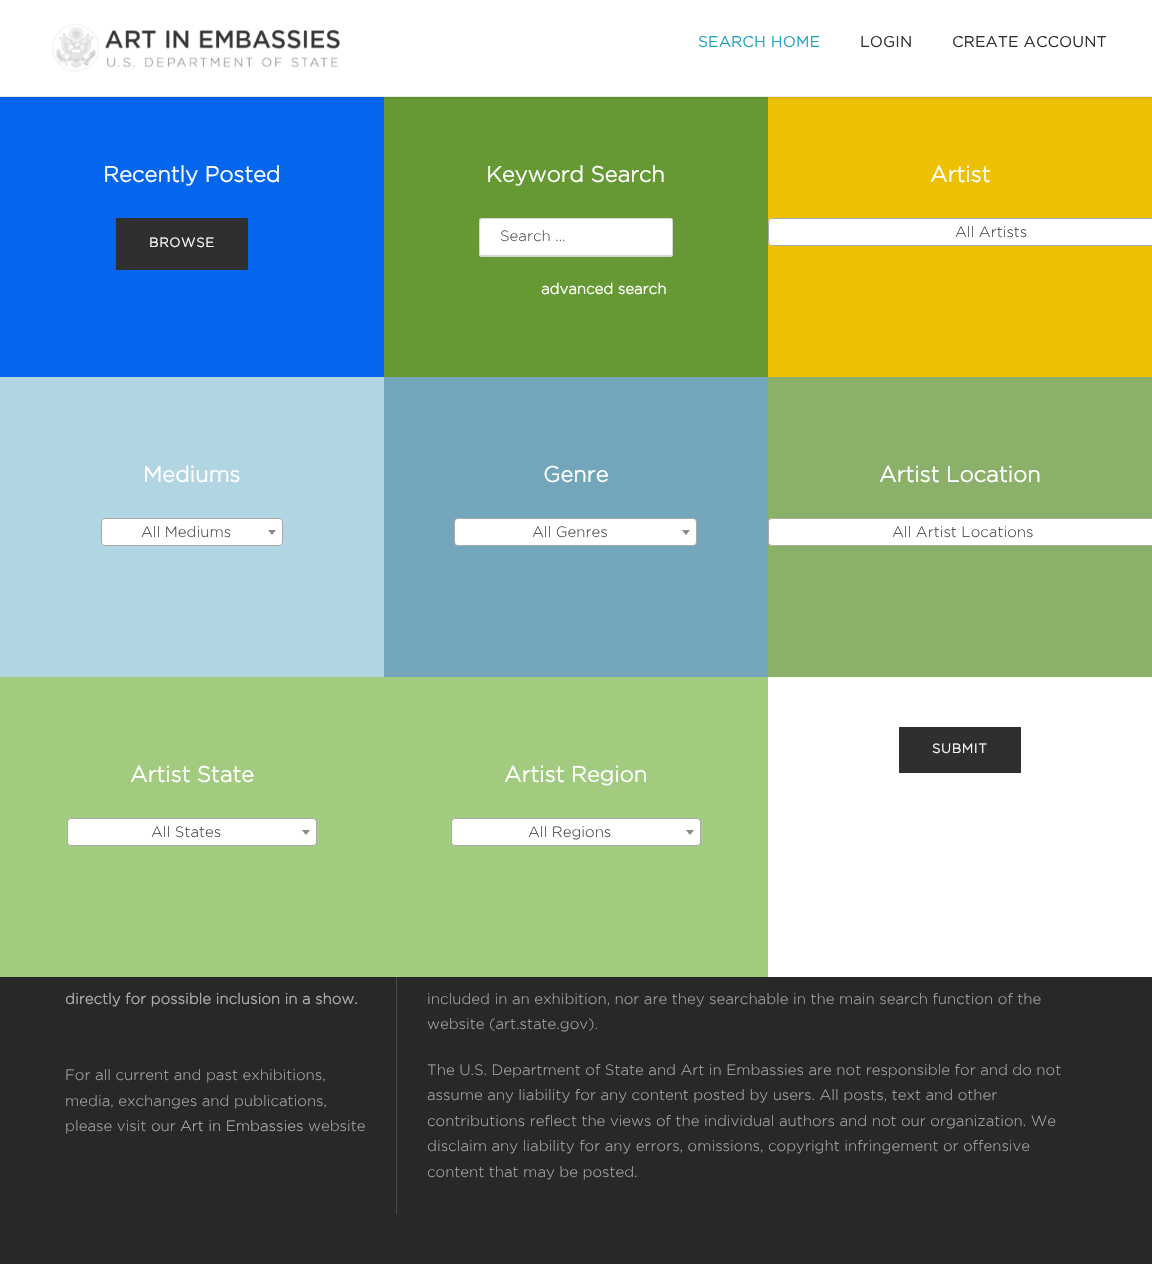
#include "include/core/SkBlurTypes.h"
#include "include/core/SkCanvas.h"
#include "include/core/SkData.h"
#include "include/core/SkFont.h"
#include "include/core/SkFontMgr.h"
#include "include/core/SkImage.h"
#include "include/core/SkMaskFilter.h"
#include "include/core/SkPaint.h"
#include "include/core/SkPathBuilder.h"
#include "include/core/SkTextBlob.h"
#include "include/effects/SkDashPathEffect.h"
#include "include/effects/SkGradientShader.h"
#include "include/utils/SkParsePath.h"

extern sk_sp<SkFontMgr> fontMgr;

static SkFont font(const char* family, int weight, float size, bool italic = false) {
    SkFontStyle style(weight, SkFontStyle::kNormal_Width,
        italic ? SkFontStyle::kItalic_Slant : SkFontStyle::kUpright_Slant);
    SkFont result(fontMgr->matchFamilyStyle(family, style), size);
    result.setSubpixel(true);
    return result;
}

static void drawLabel(SkCanvas* canvas, const char* s, float x, float y, const SkFont& font, SkColor color) {
    SkPaint ink(SkColor4f::FromColor(color));
    ink.setAntiAlias(true);
    canvas->drawString(s, x, y, font, ink);
}

static void drawTracked(SkCanvas* canvas, const char* s, float x, float y, const SkFont& font, const SkPaint& ink, float letter, float word) {
    std::vector<SkGlyphID> glyphs(font.countText(s, strlen(s), SkTextEncoding::kUTF8));
    std::vector<float> xs(glyphs.size());
    font.textToGlyphs(s, strlen(s), SkTextEncoding::kUTF8, glyphs);
    font.getXPos(glyphs, xs, x);
    float extra = 0;
    for (size_t i = 0; i < glyphs.size(); i++) {
        xs[i] += extra;
        extra += letter + word * (glyphs[i] == font.unicharToGlyph(' '));
    }
    canvas->drawTextBlob(SkTextBlob::MakeFromPosHGlyphs(glyphs, xs, y, font), 0, 0, ink);
}

static void fillRect(SkCanvas* canvas, float x, float y, float w, float h, SkColor color) {
    SkPaint ink(SkColor4f::FromColor(color));
    ink.setAntiAlias(true);
    canvas->drawRect(SkRect::MakeXYWH(x, y, w, h), ink);
}

static void drawPhoto(SkCanvas* canvas, const char* path, float x, float y, float w, float h) {
    auto image = SkImages::DeferredFromEncodedData(SkData::MakeFromFileName(path));
    canvas->drawImageRect(image, SkRect::MakeXYWH(x, y, w, h), SkSamplingOptions());
}

static SkPath parsePath(const char* data, bool evenOdd = false) {
    SkPath result = *SkParsePath::FromSVGString(data);
    if (evenOdd) result.setFillType(SkPathFillType::kEvenOdd);
    return result;
}

void draw(SkCanvas* canvas) {
    SkPaint paint;
    paint.setAntiAlias(true);
    canvas->clear(0xFF282828);
    fillRect(canvas, 0, 97, 384, 280, 0xFF0366ED);
    fillRect(canvas, 384, 97, 384, 280, 0xFF669933);
    fillRect(canvas, 768, 97, 384, 280, 0xFFEDC003);
    paint.setColor(0x1A000000);
    paint.setMaskFilter(SkMaskFilter::MakeBlur(kNormal_SkBlurStyle, 1));
    canvas->drawRect(SkRect::MakeXYWH(0, 1, 1152, 97), paint);
    paint.setMaskFilter(nullptr);
    fillRect(canvas, 0, 96, 1152, 1, 0xFFE8E8E8);
    fillRect(canvas, 0, 0, 1152, 96, 0xFFFFFFFF);
    drawPhoto(canvas, "assets/img1.png", 52, 24, 288, 48);
    SkFont font1 = font("Gotham", 700, 15);
    paint.setColor(0xFF1FA6C1);
    drawTracked(canvas, "SEARCH HOME", 698, 47, font1, paint, 0.5f, 0);
    paint.setColor(0xFF2E2E2E);
    drawTracked(canvas, "LOGIN", 860, 47, font1, paint, 0.5f, 0);
    drawTracked(canvas, "CREATE ACCOUNT", 952, 47, font1, paint, 0.5f, 0);
    fillRect(canvas, 768, 677, 384, 300, 0xFFFFFFFF);
    SkFont font2 = font("Gotham", 700, 22);
    drawLabel(canvas, "Recently Posted", 103, 182, font2, 0xFFFFFFFF);
    fillRect(canvas, 116, 218, 132, 52, 0xFF2F2F2F);
    SkFont font3 = font("Gotham", 700, 13);
    paint.setColor(0xFFFFFFFF);
    drawTracked(canvas, "BROWSE", 149, 247, font3, paint, 0.75f, 0);
    drawLabel(canvas, "Keyword Search", 486, 182, font2, 0xFFFFFFFF);
    canvas->drawPath(parsePath("M481 219H671C672 219 672 219 672 220V255H480V220Z"), paint);
    paint.setStroke(true);
    paint.setStrokeWidth(1);
    paint.setColor(0xFFD7D7D7);
    canvas->drawRoundRect(SkRect::MakeXYWH(479.5f, 218.5f, 193, 38), 1.5f, 1.5f, paint);
    fillRect(canvas, 480, 255, 192, 1, 0xFFD7D7D7);
    SkFont font4 = font("Gotham", 300, 15);
    drawLabel(canvas, "Search …", 500, 241, font4, 0xFF4E4E4E);
    drawLabel(canvas, "Artist", 930, 182, font2, 0xFFFFFFFF);
    paint.setStroke(false);
    paint.setColor(0xFFFFFFFF);
    canvas->drawPath(parsePath("M772 218H1152V246H772C770 246 768 244 768 242V222C768 220 770 218 772 218Z"), paint);
    paint.setStroke(true);
    paint.setColor(0xFFAAAAAA);
    canvas->drawRoundRect(SkRect::MakeXYWH(768.5f, 218.5f, 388, 27), 3.5f, 3.5f, paint);
    drawLabel(canvas, "All Artists", 955, 237, font4, 0xFF444444);
    fillRect(canvas, 0, 377, 384, 300, 0xFFB1D5E3);
    drawLabel(canvas, "Mediums", 143, 482, font2, 0xFFFFFFFF);
    paint.setStroke(false);
    paint.setColor(0xFFFFFFFF);
    canvas->drawRoundRect(SkRect::MakeXYWH(101.5f, 518.5f, 181, 27), 3.5f, 3.5f, paint);
    paint.setStroke(true);
    paint.setColor(0xFFAAAAAA);
    canvas->drawRoundRect(SkRect::MakeXYWH(101.5f, 518.5f, 181, 27), 3.5f, 3.5f, paint);
    drawLabel(canvas, "All Mediums", 141, 537, font4, 0xFF444444);
    paint.setStroke(false);
    paint.setColor(0xFF888888);
    canvas->drawPath(parsePath("M268 530H276L272 535Z"), paint);
    fillRect(canvas, 384, 377, 384, 300, 0xFF73A6BA);
    drawLabel(canvas, "Genre", 543, 482, font2, 0xFFFFFFFF);
    paint.setColor(0xFFFFFFFF);
    canvas->drawRoundRect(SkRect::MakeXYWH(454.5f, 518.5f, 242, 27), 3.5f, 3.5f, paint);
    paint.setStroke(true);
    paint.setColor(0xFFAAAAAA);
    canvas->drawRoundRect(SkRect::MakeXYWH(454.5f, 518.5f, 242, 27), 3.5f, 3.5f, paint);
    drawLabel(canvas, "All Genres", 532, 537, font4, 0xFF444444);
    paint.setStroke(false);
    paint.setColor(0xFF888888);
    canvas->drawPath(parsePath("M682 530H690L686 535Z"), paint);
    fillRect(canvas, 768, 377, 384, 300, 0xFF8BB06A);
    drawLabel(canvas, "Artist Location", 879, 482, font2, 0xFFFFFFFF);
    paint.setColor(0xFFFFFFFF);
    canvas->drawPath(parsePath("M772 518H1152V546H772C770 546 768 544 768 542V522C768 520 770 518 772 518Z"), paint);
    paint.setStroke(true);
    paint.setColor(0xFFAAAAAA);
    canvas->drawRoundRect(SkRect::MakeXYWH(768.5f, 518.5f, 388, 27), 3.5f, 3.5f, paint);
    drawLabel(canvas, "All Artist Locations", 892, 537, font4, 0xFF444444);
    fillRect(canvas, 899, 727, 122, 46, 0xFF2F2F2F);
    paint.setStroke(false);
    paint.setColor(0xFFFFFFFF);
    drawTracked(canvas, "SUBMIT", 932, 753, font3, paint, 0.75f, 0);
    fillRect(canvas, 0, 677, 768, 300, 0xFFA3CB7F);
    drawLabel(canvas, "Artist State", 130, 782, font2, 0xFFFFFFFF);
    canvas->drawRoundRect(SkRect::MakeXYWH(67.5f, 818.5f, 249, 27), 3.5f, 3.5f, paint);
    paint.setStroke(true);
    paint.setColor(0xFFAAAAAA);
    canvas->drawRoundRect(SkRect::MakeXYWH(67.5f, 818.5f, 249, 27), 3.5f, 3.5f, paint);
    drawLabel(canvas, "All States", 151, 837, font4, 0xFF444444);
    paint.setStroke(false);
    paint.setColor(0xFF888888);
    canvas->drawPath(parsePath("M302 830H310L306 835Z"), paint);
    drawLabel(canvas, "Artist Region", 504, 782, font2, 0xFFFFFFFF);
    paint.setColor(0xFFFFFFFF);
    canvas->drawRoundRect(SkRect::MakeXYWH(451.5f, 818.5f, 249, 27), 3.5f, 3.5f, paint);
    paint.setStroke(true);
    paint.setColor(0xFFAAAAAA);
    canvas->drawRoundRect(SkRect::MakeXYWH(451.5f, 818.5f, 249, 27), 3.5f, 3.5f, paint);
    drawLabel(canvas, "All Regions", 528, 837, font4, 0xFF444444);
    paint.setStroke(false);
    paint.setColor(0xFF888888);
    canvas->drawPath(parsePath("M686 830H694L690 835Z"), paint);
    drawLabel(canvas, "advanced search", 541, 294, font1, 0xFFFFFFFF);
    drawLabel(canvas, "directly for possible inclusion in a show.", 65, 1004, font1, 0xFFABABAB);
    drawLabel(canvas, "For all current and past exhibitions,", 65, 1080, font4, 0xFFABABAB);
    drawLabel(canvas, "media, exchanges and publications,", 65, 1106, font4, 0xFFABABAB);
    drawLabel(canvas, "please visit our", 65, 1131, font4, 0xFFABABAB);
    drawLabel(canvas, "Art in Embassies", 180, 1131, font4, 0xFFBABABA);
    drawLabel(canvas, "website", 308, 1131, font4, 0xFFABABAB);
    fillRect(canvas, 396, 977, 1, 237, 0xFF494949);
    drawLabel(canvas, "included in an exhibition, nor are they searchable in the main search function of the", 427, 1004, font4, 0xFFABABAB);
    drawLabel(canvas, "website (art.state.gov).", 427, 1029, font4, 0xFFABABAB);
    drawLabel(canvas, "The U.S. Department of State and Art in Embassies are not responsible for and do not", 427, 1075, font4, 0xFFABABAB);
    drawLabel(canvas, "assume any liability for any content posted by users. All posts, text and other", 427, 1100, font4, 0xFFABABAB);
    drawLabel(canvas, "contributions reflect the views of the individual authors and not our organization. We", 427, 1126, font4, 0xFFABABAB);
    drawLabel(canvas, "disclaim any liability for any errors, omissions, copyright infringement or offensive", 427, 1151, font4, 0xFFABABAB);
    drawLabel(canvas, "content that may be posted.", 427, 1177, font4, 0xFFABABAB);
}
